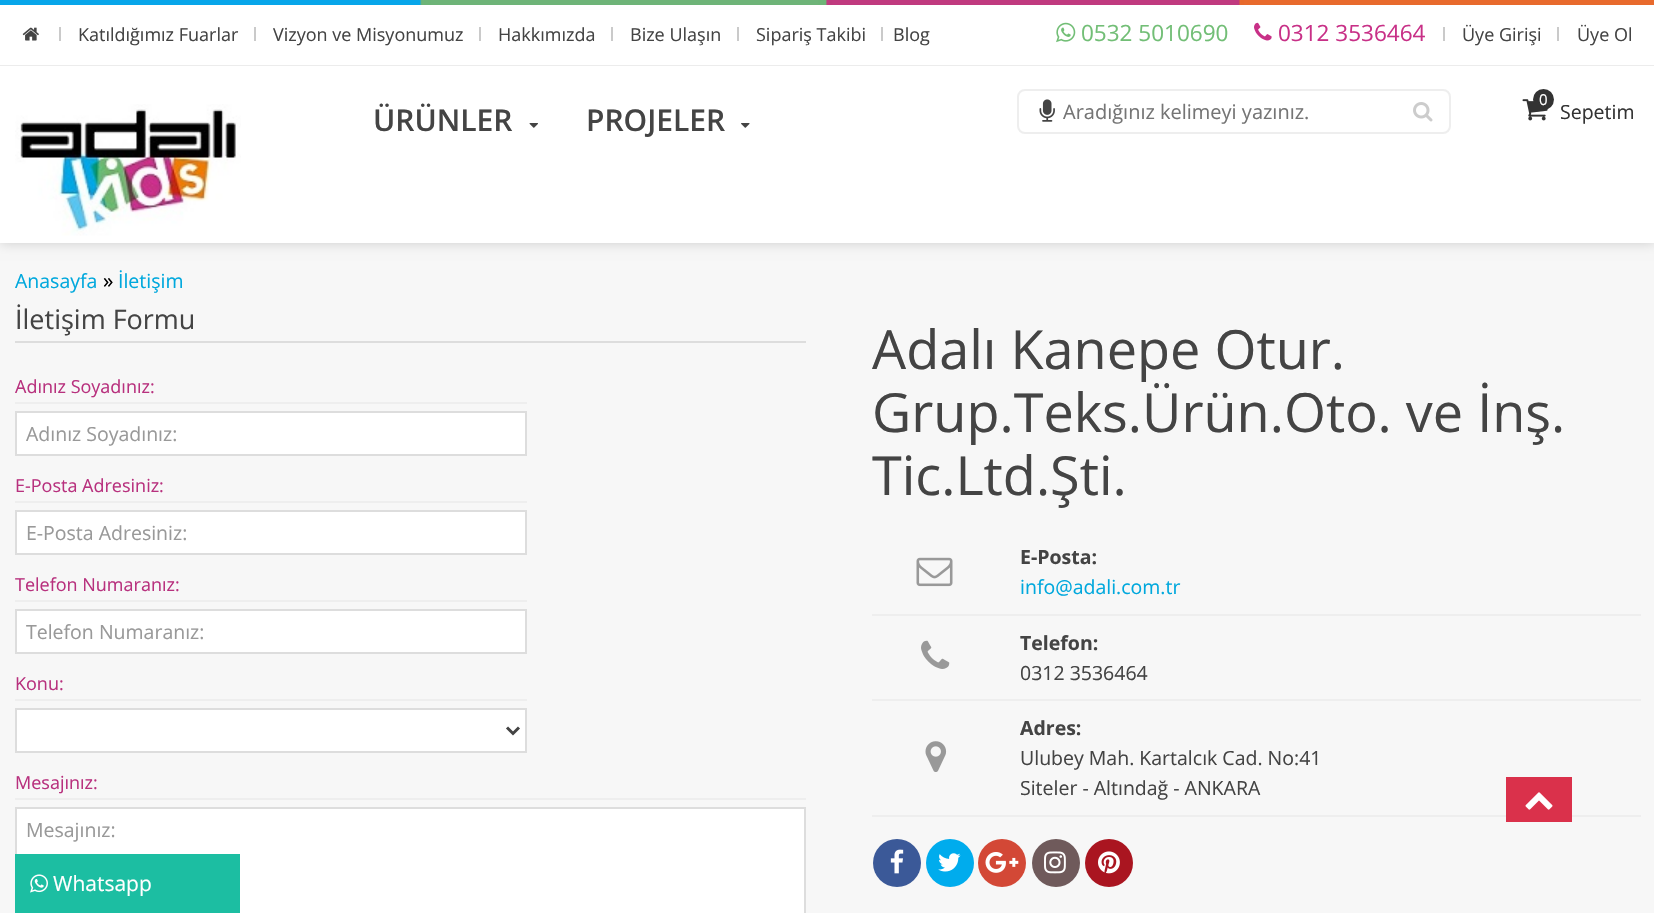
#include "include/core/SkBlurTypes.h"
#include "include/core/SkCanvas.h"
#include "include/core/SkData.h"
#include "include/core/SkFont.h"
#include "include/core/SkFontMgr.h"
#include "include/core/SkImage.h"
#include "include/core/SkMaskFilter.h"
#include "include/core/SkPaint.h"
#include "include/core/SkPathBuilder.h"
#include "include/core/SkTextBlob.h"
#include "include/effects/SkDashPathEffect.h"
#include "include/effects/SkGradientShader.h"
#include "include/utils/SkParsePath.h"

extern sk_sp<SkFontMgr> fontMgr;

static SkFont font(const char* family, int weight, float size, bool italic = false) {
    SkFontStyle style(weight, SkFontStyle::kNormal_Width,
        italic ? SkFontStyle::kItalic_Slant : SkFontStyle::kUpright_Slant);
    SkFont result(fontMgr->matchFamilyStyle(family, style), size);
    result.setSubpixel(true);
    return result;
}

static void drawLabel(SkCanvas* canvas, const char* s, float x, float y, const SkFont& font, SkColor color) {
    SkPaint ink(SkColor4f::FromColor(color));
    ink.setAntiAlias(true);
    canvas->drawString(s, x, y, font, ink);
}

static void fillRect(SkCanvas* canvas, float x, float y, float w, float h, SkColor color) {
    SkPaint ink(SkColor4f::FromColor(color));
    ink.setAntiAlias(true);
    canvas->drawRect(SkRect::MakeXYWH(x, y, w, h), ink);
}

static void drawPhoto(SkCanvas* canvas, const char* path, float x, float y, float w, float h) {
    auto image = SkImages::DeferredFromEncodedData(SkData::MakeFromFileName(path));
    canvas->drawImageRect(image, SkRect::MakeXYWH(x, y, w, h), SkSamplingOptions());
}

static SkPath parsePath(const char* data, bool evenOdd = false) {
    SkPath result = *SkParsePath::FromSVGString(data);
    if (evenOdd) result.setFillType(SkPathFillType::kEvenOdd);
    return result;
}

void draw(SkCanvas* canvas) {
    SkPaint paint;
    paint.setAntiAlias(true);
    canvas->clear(0xFFF7F7F7);
    paint.setColor(0xFFCCCCCC);
    paint.setMaskFilter(SkMaskFilter::MakeBlur(kNormal_SkBlurStyle, 6));
    canvas->drawRect(SkRect::MakeXYWH(0, 0, 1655, 243), paint);
    paint.setMaskFilter(nullptr);
    drawPhoto(canvas, "assets/img1.png", 0, 0, 1654, 5);
    fillRect(canvas, 0, 5, 1654, 60, 0xFFFFFFFF);
    fillRect(canvas, 0, 65, 1654, 1, 0xFFECECEC);
    drawPhoto(canvas, "assets/img2.png", 22, 27, 17, 14);
    fillRect(canvas, 59, 27, 2, 14, 0xFFCACACA);
    SkFont font1 = font("Open Sans", 400, 18);
    drawLabel(canvas, "Katıldığımız Fuarlar", 78, 41, font1, 0xFF444444);
    fillRect(canvas, 254, 27, 2, 14, 0xFFCACACA);
    drawLabel(canvas, "Vizyon ve Misyonumuz", 273, 41, font1, 0xFF444444);
    fillRect(canvas, 479, 27, 2, 14, 0xFFCACACA);
    drawLabel(canvas, "Hakkımızda", 498, 41, font1, 0xFF444444);
    fillRect(canvas, 611, 27, 2, 14, 0xFFCACACA);
    drawLabel(canvas, "Bize Ulaşın", 630, 41, font1, 0xFF444444);
    fillRect(canvas, 737, 27, 2, 14, 0xFFCACACA);
    drawLabel(canvas, "Sipariş Takibi", 756, 41, font1, 0xFF444444);
    fillRect(canvas, 881, 27, 2, 14, 0xFFCACACA);
    drawLabel(canvas, "Blog", 893, 41, font1, 0xFF444444);
    drawPhoto(canvas, "assets/img3.png", 1056, 22, 20, 21);
    SkFont font2 = font("Open Sans", 400, 22.5f);
    drawLabel(canvas, "0532 5010690", 1081, 41, font2, 0xFF72BE76);
    drawPhoto(canvas, "assets/img4.png", 1254, 22, 18, 19);
    drawLabel(canvas, "0312 3536464", 1278, 41, font2, 0xFFC83087);
    fillRect(canvas, 1443, 27, 2, 14, 0xFFCACACA);
    drawLabel(canvas, "Üye Girişi", 1462, 41, font1, 0xFF444444);
    fillRect(canvas, 1557, 27, 2, 14, 0xFFCACACA);
    drawLabel(canvas, "Üye Ol", 1577, 41, font1, 0xFF444444);
    fillRect(canvas, 0, 66, 1654, 177, 0xFFFFFFFF);
    drawPhoto(canvas, "assets/img5.png", 15, 104, 226, 132);
    SkFont font3 = font("Open Sans", 600, 30);
    drawLabel(canvas, "ÜRÜNLER", 373, 131, font3, 0xFF444444);
    drawPhoto(canvas, "assets/img6.png", 529, 123, 9, 5);
    drawLabel(canvas, "PROJELER", 586, 131, font3, 0xFF444444);
    drawPhoto(canvas, "assets/img7.png", 741, 123, 9, 5);
    paint.setStroke(true);
    paint.setStrokeWidth(2);
    paint.setColor(0xFFEEEEEE);
    canvas->drawRoundRect(SkRect::MakeXYWH(1018, 90, 432, 43), 7, 7, paint);
    drawPhoto(canvas, "assets/img8.png", 1039, 99, 16, 23);
    SkFont font4 = font("Open Sans", 400, 20);
    drawLabel(canvas, "Aradığınız kelimeyi yazınız.", 1063, 119, font4, 0xFF757575);
    drawPhoto(canvas, "assets/img9.png", 1413, 102, 20, 20);
    drawPhoto(canvas, "assets/img10.png", 1522, 99, 26, 22);
    paint.setStroke(false);
    paint.setColor(0xFF333333);
    canvas->drawCircle(1543.5f, 99.5f, 10.5f, paint);
    SkFont font5 = font("Open Sans", 400, 15);
    drawLabel(canvas, "0", 1539, 105, font5, 0xFFFFFFFF);
    SkFont font6 = font("Open Sans", 400, 19.5f);
    drawLabel(canvas, "Sepetim", 1560, 119, font6, 0xFF333333);
    drawLabel(canvas, "Anasayfa", 15, 288, font6, 0xFF00A8DD);
    SkFont font7 = font("Open Sans", 400, 21);
    drawLabel(canvas, "»", 103, 288, font7, 0xFF000000);
    drawLabel(canvas, "İletişim", 118, 288, font6, 0xFF00A8DD);
    SkFont font8 = font("Open Sans", 400, 27);
    drawLabel(canvas, "İletişim Formu", 15, 329, font8, 0xFF444444);
    fillRect(canvas, 15, 341, 791, 2, 0xFFDDDDDD);
    fillRect(canvas, 15, 402, 512, 2, 0xFFEEEEEE);
    drawLabel(canvas, "Adınız Soyadınız:", 15, 393, font1, 0xFFB8317E);
    paint.setColor(0xFFFFFFFF);
    canvas->drawRect(SkRect::MakeXYWH(16, 412, 510, 43), paint);
    paint.setStroke(true);
    paint.setColor(0xFFDDDDDD);
    canvas->drawRect(SkRect::MakeXYWH(16, 412, 510, 43), paint);
    drawLabel(canvas, "Adınız Soyadınız:", 26, 441, font6, 0xFF999999);
    fillRect(canvas, 15, 501, 512, 2, 0xFFEEEEEE);
    drawLabel(canvas, "E-Posta Adresiniz:", 15, 492, font1, 0xFFB8317E);
    paint.setStroke(false);
    paint.setColor(0xFFFFFFFF);
    canvas->drawRect(SkRect::MakeXYWH(16, 511, 510, 43), paint);
    paint.setStroke(true);
    paint.setColor(0xFFDDDDDD);
    canvas->drawRect(SkRect::MakeXYWH(16, 511, 510, 43), paint);
    drawLabel(canvas, "E-Posta Adresiniz:", 26, 540, font6, 0xFF999999);
    fillRect(canvas, 15, 600, 512, 2, 0xFFEEEEEE);
    drawLabel(canvas, "Telefon Numaranız:", 15, 591, font1, 0xFFB8317E);
    paint.setStroke(false);
    paint.setColor(0xFFFFFFFF);
    canvas->drawRect(SkRect::MakeXYWH(16, 610, 510, 43), paint);
    paint.setStroke(true);
    paint.setColor(0xFFDDDDDD);
    canvas->drawRect(SkRect::MakeXYWH(16, 610, 510, 43), paint);
    drawLabel(canvas, "Telefon Numaranız:", 26, 639, font6, 0xFF999999);
    fillRect(canvas, 15, 699, 512, 2, 0xFFEEEEEE);
    drawLabel(canvas, "Konu:", 15, 690, font1, 0xFFB8317E);
    paint.setStroke(false);
    paint.setColor(0xFFFFFFFF);
    canvas->drawRect(SkRect::MakeXYWH(16, 709, 510, 43), paint);
    paint.setStroke(true);
    paint.setColor(0xFFDDDDDD);
    canvas->drawRect(SkRect::MakeXYWH(16, 709, 510, 43), paint);
    paint.setStrokeWidth(3);
    paint.setColor(0xFF444444);
    canvas->drawPath(parsePath("M507 727.5L513 733.5L519 727.5"), paint);
    fillRect(canvas, 15, 798, 791, 2, 0xFFEEEEEE);
    drawLabel(canvas, "Mesajınız:", 15, 789, font1, 0xFFB8317E);
    paint.setStroke(false);
    paint.setColor(0xFFFFFFFF);
    canvas->drawRect(SkRect::MakeXYWH(16, 808, 789, 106), paint);
    paint.setStroke(true);
    paint.setStrokeWidth(2);
    paint.setColor(0xFFDDDDDD);
    canvas->drawRect(SkRect::MakeXYWH(16, 808, 789, 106), paint);
    drawLabel(canvas, "Mesajınız:", 26, 837, font6, 0xFF999999);
    SkFont font9 = font("Open Sans", 400, 54);
    drawLabel(canvas, "Adalı Kanepe Otur.", 872, 369, font9, 0xFF444444);
    drawLabel(canvas, "Grup.Teks.Ürün.Oto. ve İnş.", 872, 432, font9, 0xFF444444);
    drawLabel(canvas, "Tic.Ltd.Şti.", 872, 495, font9, 0xFF444444);
    drawPhoto(canvas, "assets/img11.png", 916, 557, 37, 30);
    fillRect(canvas, 872, 614, 769, 2, 0xFFEEEEEE);
    SkFont font10 = font("Open Sans", 700, 19.5f);
    drawLabel(canvas, "E-Posta:", 1020, 564, font10, 0xFF444444);
    drawLabel(canvas, "info@adali.com.tr", 1020, 594, font6, 0xFF00A8DD);
    drawPhoto(canvas, "assets/img12.png", 921, 640, 29, 29);
    fillRect(canvas, 872, 699, 769, 2, 0xFFEEEEEE);
    drawLabel(canvas, "Telefon:", 1020, 650, font10, 0xFF444444);
    drawLabel(canvas, "0312 3536464", 1020, 680, font6, 0xFF444444);
    drawPhoto(canvas, "assets/img13.png", 925, 741, 22, 31);
    fillRect(canvas, 872, 815, 769, 2, 0xFFEEEEEE);
    drawLabel(canvas, "Adres:", 1020, 735, font10, 0xFF444444);
    drawLabel(canvas, "Ulubey Mah. Kartalcık Cad. No:41", 1020, 765, font6, 0xFF444444);
    drawLabel(canvas, "Siteler - Altındağ - ANKARA", 1020, 795, font6, 0xFF444444);
    paint.setStroke(false);
    paint.setColor(0xFF3B5998);
    canvas->drawCircle(897, 863, 24, paint);
    drawPhoto(canvas, "assets/img14.png", 890, 849, 14, 25);
    paint.setColor(0xFF00ACED);
    canvas->drawCircle(950, 863, 24, paint);
    drawPhoto(canvas, "assets/img15.png", 938, 853, 23, 19);
    paint.setColor(0xFFD34836);
    canvas->drawCircle(1002, 863, 24, paint);
    drawPhoto(canvas, "assets/img16.png", 985, 852, 34, 21);
    paint.setColor(0xFF6F5A5B);
    canvas->drawCircle(1056, 863, 24, paint);
    drawPhoto(canvas, "assets/img17.png", 1044, 851, 22, 23);
    paint.setColor(0xFFAA1520);
    canvas->drawCircle(1109, 863, 24, paint);
    drawPhoto(canvas, "assets/img18.png", 1098, 851, 22, 23);
    fillRect(canvas, 1506, 777, 66, 45, 0xFFDA314B);
    drawPhoto(canvas, "assets/img19.png", 1525, 792, 28, 18);
    fillRect(canvas, 15, 854, 225, 59, 0xFF1CBEA2);
    drawPhoto(canvas, "assets/img20.png", 30, 874, 18, 19);
    drawLabel(canvas, "Whatsapp", 53, 891, font7, 0xFFFFFFFF);
}
